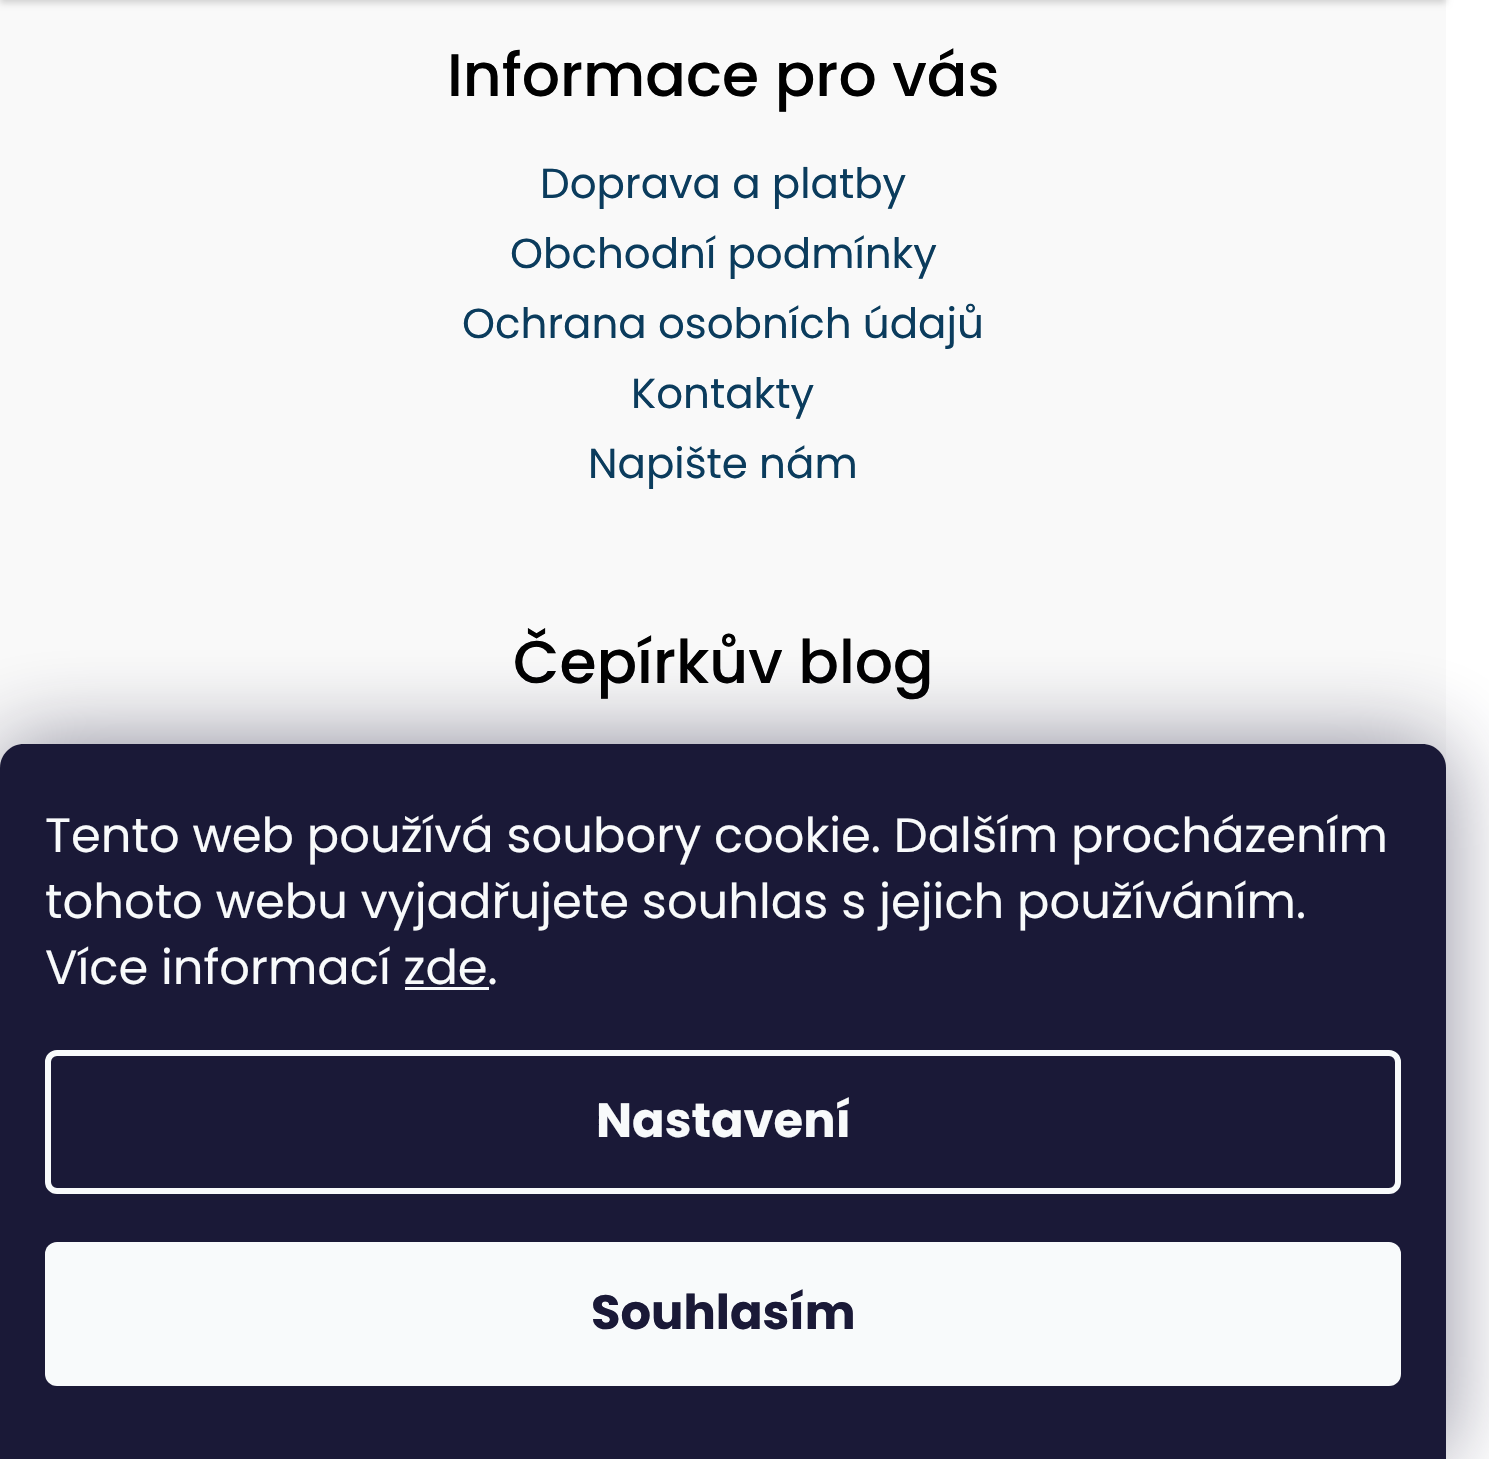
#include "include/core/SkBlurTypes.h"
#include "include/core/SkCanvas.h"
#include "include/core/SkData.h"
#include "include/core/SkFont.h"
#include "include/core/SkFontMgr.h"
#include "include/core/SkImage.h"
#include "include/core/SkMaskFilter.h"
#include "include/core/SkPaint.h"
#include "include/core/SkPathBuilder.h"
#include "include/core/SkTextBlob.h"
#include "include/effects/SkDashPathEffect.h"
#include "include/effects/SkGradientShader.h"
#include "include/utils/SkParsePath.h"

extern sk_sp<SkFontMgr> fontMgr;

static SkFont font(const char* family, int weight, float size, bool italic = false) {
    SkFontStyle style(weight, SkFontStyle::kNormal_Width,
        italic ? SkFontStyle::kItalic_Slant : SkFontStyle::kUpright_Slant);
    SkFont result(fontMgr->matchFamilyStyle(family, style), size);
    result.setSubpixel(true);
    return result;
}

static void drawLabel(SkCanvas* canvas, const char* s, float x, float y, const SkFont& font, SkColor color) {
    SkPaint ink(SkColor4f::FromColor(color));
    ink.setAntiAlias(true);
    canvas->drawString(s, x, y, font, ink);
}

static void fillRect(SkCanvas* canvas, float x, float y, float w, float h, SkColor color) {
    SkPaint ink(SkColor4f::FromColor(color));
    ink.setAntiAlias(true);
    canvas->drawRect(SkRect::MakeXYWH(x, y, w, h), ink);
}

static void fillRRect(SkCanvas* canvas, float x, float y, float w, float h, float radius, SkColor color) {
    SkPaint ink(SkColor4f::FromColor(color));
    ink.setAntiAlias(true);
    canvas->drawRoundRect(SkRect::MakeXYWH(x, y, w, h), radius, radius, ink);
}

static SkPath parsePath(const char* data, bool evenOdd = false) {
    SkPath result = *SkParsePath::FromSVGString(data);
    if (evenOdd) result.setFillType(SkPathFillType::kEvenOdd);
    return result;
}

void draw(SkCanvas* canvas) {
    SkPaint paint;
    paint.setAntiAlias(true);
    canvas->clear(0xFFFFFFFF);
    fillRect(canvas, 0, 0, 1446, 768, 0xFFF9F9F9);
    paint.setColor(0x29000000);
    paint.setMaskFilter(SkMaskFilter::MakeBlur(kNormal_SkBlurStyle, 3));
    canvas->drawRect(SkRect::MakeXYWH(0, -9, 1446, 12), paint);
    paint.setMaskFilter(nullptr);
    SkFont font1 = font("Poppins", 500, 60);
    drawLabel(canvas, "Informace pro vás", 447, 96, font1, 0xFF000000);
    SkFont font2 = font("Poppins", 400, 42);
    drawLabel(canvas, "Doprava a platby", 540, 198, font2, 0xFF0B3C5D);
    drawLabel(canvas, "Obchodní podmínky", 510, 268, font2, 0xFF0B3C5D);
    drawLabel(canvas, "Ochrana osobních údajů", 462, 338, font2, 0xFF0B3C5D);
    drawLabel(canvas, "Kontakty", 631, 408, font2, 0xFF0B3C5D);
    drawLabel(canvas, "Napište nám", 588, 478, font2, 0xFF0B3C5D);
    drawLabel(canvas, "Čepírkův blog", 513, 683, font1, 0xFF000000);
    paint.setColor(0x801B1939);
    paint.setMaskFilter(SkMaskFilter::MakeBlur(kNormal_SkBlurStyle, 45));
    canvas->drawRoundRect(SkRect::MakeXYWH(0, 744, 1446, 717), 24, 24, paint);
    paint.setMaskFilter(nullptr);
    paint.setColor(0xFF1A1937);
    canvas->drawPath(parsePath("M24 744H1422C1435.5 744 1446 754.5 1446 768V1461H0V768C0 754.5 10.5 744 24 744Z"), paint);
    SkFont font3 = font("Poppins", 400, 48);
    drawLabel(canvas, "Tento web používá soubory cookie. Dalším procházením", 45, 852, font3, 0xFFF8FAFB);
    drawLabel(canvas, "tohoto webu vyjadřujete souhlas s jejich používáním.", 45, 918, font3, 0xFFF8FAFB);
    drawLabel(canvas, "Více informací zde.", 45, 984, font3, 0xFFF8FAFB);
    fillRect(canvas, 405, 987, 84, 3, 0xFFF8FAFB);
    paint.setStroke(true);
    paint.setStrokeWidth(6);
    paint.setColor(0xFFF8FAFB);
    canvas->drawRoundRect(SkRect::MakeXYWH(48, 1053, 1350, 138), 9, 9, paint);
    SkFont font4 = font("Poppins", 700, 48);
    drawLabel(canvas, "Nastavení", 596, 1137, font4, 0xFFF8FAFB);
    fillRRect(canvas, 45, 1242, 1356, 144, 12, 0xFFF8FAFB);
    drawLabel(canvas, "Souhlasím", 591, 1329, font4, 0xFF1A1937);
}
